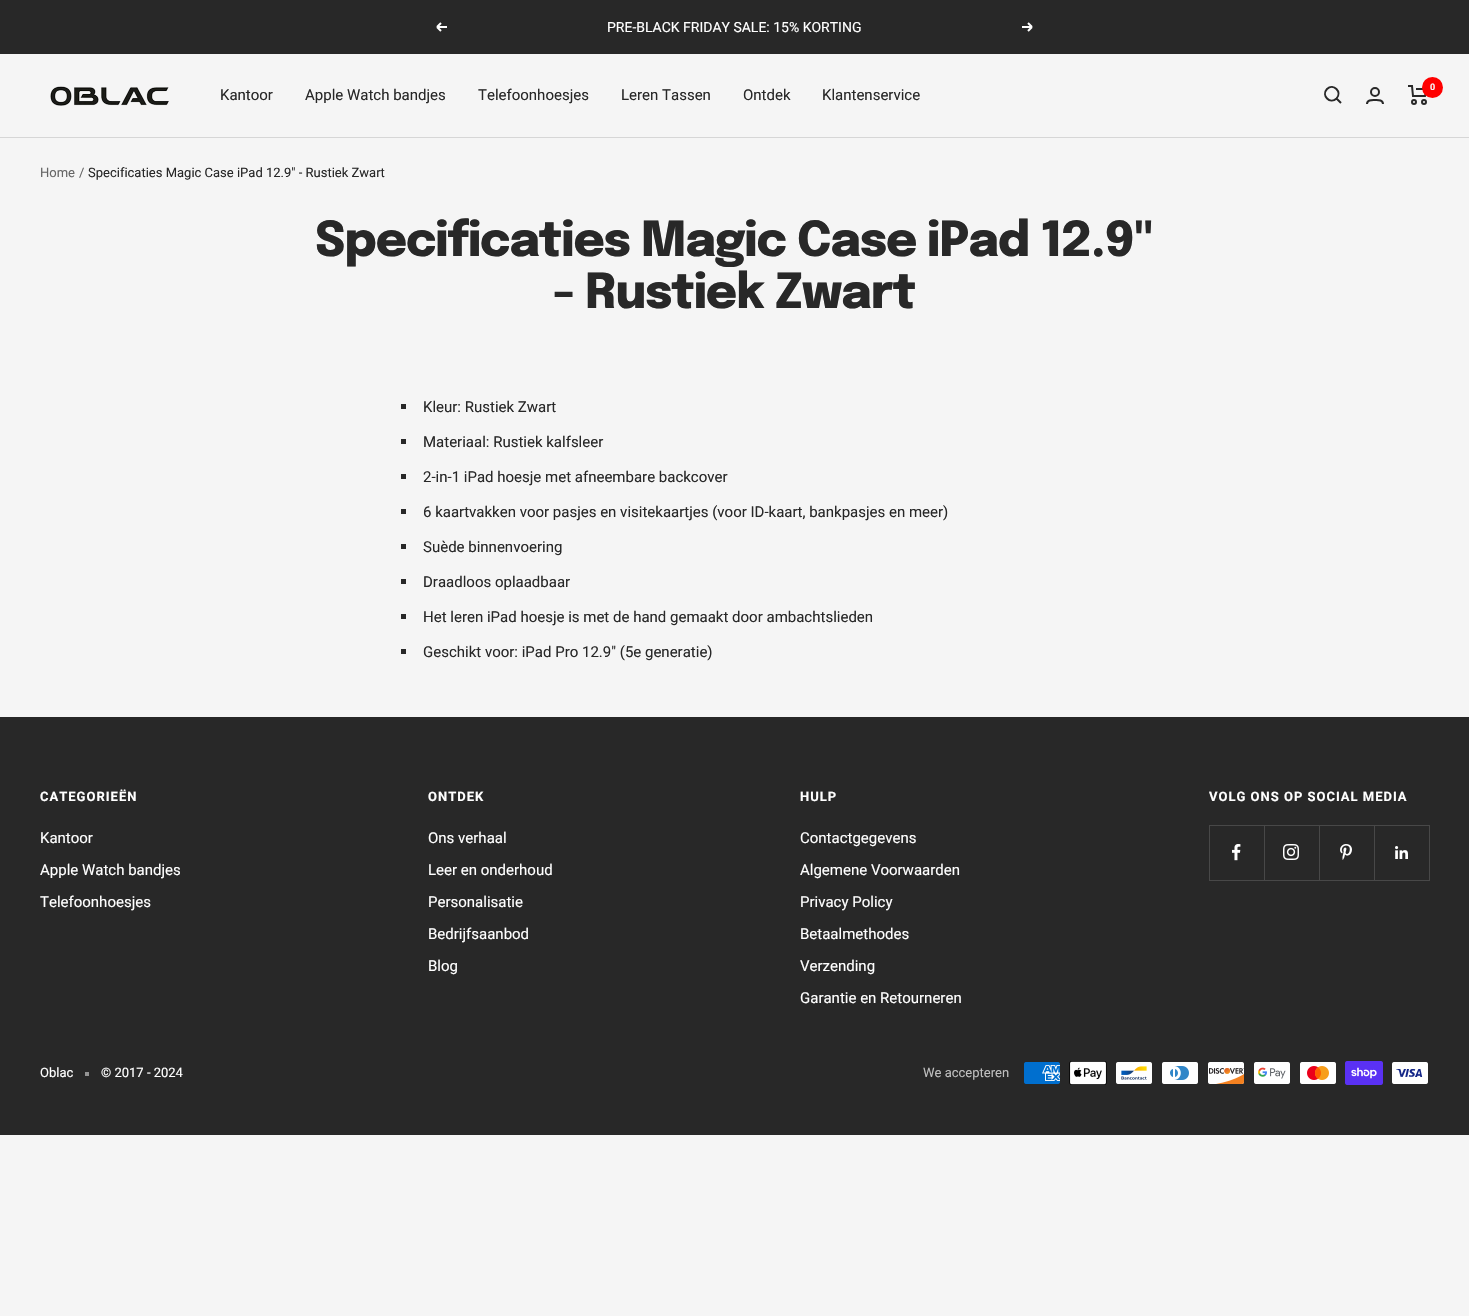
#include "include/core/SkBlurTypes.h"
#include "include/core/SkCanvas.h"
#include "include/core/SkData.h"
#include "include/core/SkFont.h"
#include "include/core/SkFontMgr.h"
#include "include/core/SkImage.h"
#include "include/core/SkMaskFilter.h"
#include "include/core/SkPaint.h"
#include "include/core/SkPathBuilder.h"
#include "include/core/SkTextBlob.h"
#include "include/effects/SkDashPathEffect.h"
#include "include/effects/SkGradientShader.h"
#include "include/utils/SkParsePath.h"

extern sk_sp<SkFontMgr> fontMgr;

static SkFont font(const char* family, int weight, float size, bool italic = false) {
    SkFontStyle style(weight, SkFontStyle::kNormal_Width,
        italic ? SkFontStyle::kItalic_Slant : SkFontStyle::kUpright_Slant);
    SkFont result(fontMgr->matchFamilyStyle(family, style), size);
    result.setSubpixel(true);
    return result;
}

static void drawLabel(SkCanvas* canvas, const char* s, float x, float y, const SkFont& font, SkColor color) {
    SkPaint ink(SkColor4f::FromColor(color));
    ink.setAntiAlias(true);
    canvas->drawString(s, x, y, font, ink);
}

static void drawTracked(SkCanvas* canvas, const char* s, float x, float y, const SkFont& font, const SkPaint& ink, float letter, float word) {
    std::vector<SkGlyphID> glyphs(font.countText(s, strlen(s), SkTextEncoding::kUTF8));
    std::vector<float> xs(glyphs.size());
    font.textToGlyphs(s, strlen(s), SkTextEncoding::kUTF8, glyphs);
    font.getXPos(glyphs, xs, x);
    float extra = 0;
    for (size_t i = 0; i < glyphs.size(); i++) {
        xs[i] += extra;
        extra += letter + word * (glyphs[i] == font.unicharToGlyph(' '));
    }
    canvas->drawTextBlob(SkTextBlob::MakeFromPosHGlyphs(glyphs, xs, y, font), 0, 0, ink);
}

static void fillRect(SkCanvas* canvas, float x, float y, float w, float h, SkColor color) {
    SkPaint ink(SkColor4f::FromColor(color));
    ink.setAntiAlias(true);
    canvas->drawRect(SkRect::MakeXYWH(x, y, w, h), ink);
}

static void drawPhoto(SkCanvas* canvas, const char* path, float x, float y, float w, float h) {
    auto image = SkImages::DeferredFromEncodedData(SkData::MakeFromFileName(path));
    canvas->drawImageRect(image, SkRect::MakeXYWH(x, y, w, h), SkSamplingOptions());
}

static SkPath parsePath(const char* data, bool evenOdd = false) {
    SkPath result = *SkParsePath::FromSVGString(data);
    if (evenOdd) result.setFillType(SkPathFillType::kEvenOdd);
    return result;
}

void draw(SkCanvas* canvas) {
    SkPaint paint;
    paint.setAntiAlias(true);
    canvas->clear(0xFFF5F5F5);
    fillRect(canvas, 0, 0, 1469, 54, 0xFF282828);
    paint.setStroke(true);
    paint.setStrokeWidth(2);
    paint.setColor(0xFFFFFFFF);
    canvas->drawPath(parsePath("M447 27H437M437 27L441 31M437 27L441 23"), paint);
    SkFont font1 = font("Roboto", 400, 14);
    drawLabel(canvas, "PRE-BLACK FRIDAY SALE: 15% KORTING", 607, 32, font1, 0xFFFFFFFF);
    canvas->drawPath(parsePath("M1022 27H1032M1032 27L1028 31M1032 27L1028 23"), paint);
    fillRect(canvas, 0, 137, 1469, 1, 0xFFD6D6D6);
    drawPhoto(canvas, "assets/img1.png", 50, 86, 119, 20);
    SkFont font2 = font("Roboto", 400, 15);
    drawLabel(canvas, "Kantoor", 220, 100, font2, 0xFF282828);
    drawLabel(canvas, "Apple Watch bandjes", 305, 100, font2, 0xFF282828);
    drawLabel(canvas, "Telefoonhoesjes", 478, 100, font2, 0xFF282828);
    drawLabel(canvas, "Leren Tassen", 621, 100, font2, 0xFF282828);
    drawLabel(canvas, "Ontdek", 743, 100, font2, 0xFF282828);
    drawLabel(canvas, "Klantenservice", 822, 100, font2, 0xFF282828);
    paint.setColor(0xFF282828);
    canvas->drawPath(parsePath("M1336.5 98.5C1342.5 92 1333.5 83 1327 89C1321 95.5 1330 104.5 1336.5 98.5ZM1336.5 98.5L1341 103"), paint);
    canvas->drawCircle(1375, 92, 4, paint);
    canvas->drawPath(parsePath("M1367 104C1367 99.5 1372 100 1375 100C1378 100 1383 99.5 1383 104M1408 86H1412L1413 96H1425L1427 89H1416"), paint);
    paint.setStroke(false);
    paint.setColor(0xFFFF0000);
    canvas->drawCircle(1432.5f, 87.5f, 10.5f, paint);
    SkFont font3 = font("Roboto", 700, 9);
    drawLabel(canvas, "0", 1430, 90, font3, 0xFFF5F5F5);
    paint.setStroke(true);
    paint.setColor(0xFF282828);
    canvas->drawCircle(1414, 102, 2, paint);
    canvas->drawCircle(1424, 102, 2, paint);
    SkFont font4 = font("Roboto", 400, 13);
    drawLabel(canvas, "Home", 40, 177, font4, 0xFF666666);
    drawLabel(canvas, "/", 79, 177, font4, 0xFF666666);
    drawLabel(canvas, "Specificaties Magic Case iPad 12.9\" - Rustiek Zwart", 88, 177, font4, 0xFF282828);
    SkFont font5 = font("Epilogue", 800, 48);
    paint.setStroke(false);
    drawTracked(canvas, "Specificaties Magic Case iPad 12.9\"", 315, 256, font5, paint, -1, 0);
    drawTracked(canvas, "- Rustiek Zwart", 553, 308, font5, paint, -1, 0);
    fillRect(canvas, 401, 404, 5, 5, 0xFF282828);
    drawLabel(canvas, "Kleur: Rustiek Zwart", 423, 412, font2, 0xFF282828);
    fillRect(canvas, 401, 439, 5, 5, 0xFF282828);
    drawLabel(canvas, "Materiaal: Rustiek kalfsleer", 423, 447, font2, 0xFF282828);
    fillRect(canvas, 401, 474, 5, 5, 0xFF282828);
    drawLabel(canvas, "2-in-1 iPad hoesje met afneembare backcover", 423, 482, font2, 0xFF282828);
    fillRect(canvas, 401, 509, 5, 5, 0xFF282828);
    drawLabel(canvas, "6 kaartvakken voor pasjes en visitekaartjes (voor ID-kaart, bankpasjes en meer)", 423, 517, font2, 0xFF282828);
    fillRect(canvas, 401, 544, 5, 5, 0xFF282828);
    drawLabel(canvas, "Suède binnenvoering", 423, 552, font2, 0xFF282828);
    fillRect(canvas, 401, 579, 5, 5, 0xFF282828);
    drawLabel(canvas, "Draadloos oplaadbaar", 423, 587, font2, 0xFF282828);
    fillRect(canvas, 401, 614, 5, 5, 0xFF282828);
    drawLabel(canvas, "Het leren iPad hoesje is met de hand gemaakt door ambachtslieden", 423, 622, font2, 0xFF282828);
    fillRect(canvas, 401, 649, 5, 5, 0xFF282828);
    drawLabel(canvas, "Geschikt voor: iPad Pro 12.9\" (5e generatie)", 423, 657, font2, 0xFF282828);
    fillRect(canvas, 0, 717, 1469, 418, 0xFF282828);
    SkFont font6 = font("Roboto", 700, 13);
    paint.setColor(0xFFFFFFFF);
    drawTracked(canvas, "CATEGORIEËN", 40, 801, font6, paint, 1, 0);
    drawLabel(canvas, "Kantoor", 40, 843, font2, 0xFFFFFFFF);
    drawLabel(canvas, "Apple Watch bandjes", 40, 875, font2, 0xFFFFFFFF);
    drawLabel(canvas, "Telefoonhoesjes", 40, 907, font2, 0xFFFFFFFF);
    drawTracked(canvas, "ONTDEK", 428, 801, font6, paint, 1, 0);
    drawLabel(canvas, "Ons verhaal", 428, 843, font2, 0xFFFFFFFF);
    drawLabel(canvas, "Leer en onderhoud", 428, 875, font2, 0xFFFFFFFF);
    drawLabel(canvas, "Personalisatie", 428, 907, font2, 0xFFFFFFFF);
    drawLabel(canvas, "Bedrijfsaanbod", 428, 939, font2, 0xFFFFFFFF);
    drawLabel(canvas, "Blog", 428, 971, font2, 0xFFFFFFFF);
    drawTracked(canvas, "HULP", 800, 801, font6, paint, 1, 0);
    drawLabel(canvas, "Contactgegevens", 800, 843, font2, 0xFFFFFFFF);
    drawLabel(canvas, "Algemene Voorwaarden", 800, 875, font2, 0xFFFFFFFF);
    drawLabel(canvas, "Privacy Policy", 800, 907, font2, 0xFFFFFFFF);
    drawLabel(canvas, "Betaalmethodes", 800, 939, font2, 0xFFFFFFFF);
    drawLabel(canvas, "Verzending", 800, 971, font2, 0xFFFFFFFF);
    drawLabel(canvas, "Garantie en Retourneren", 800, 1003, font2, 0xFFFFFFFF);
    drawTracked(canvas, "VOLG ONS OP SOCIAL MEDIA", 1209, 801, font6, paint, 1, 0);
    paint.setColor(0xFF484848);
    canvas->drawPath(parsePath("M1210 880V881H1265V826H1264V880Z"), paint);
    fillRect(canvas, 1209, 880, 1, 1, 0xFF484848);
    fillRect(canvas, 1209, 825, 56, 1, 0xFF484848);
    fillRect(canvas, 1209, 825, 1, 55, 0xFF484848);
    drawPhoto(canvas, "assets/img2.png", 1232, 844, 9, 17);
    canvas->drawPath(parsePath("M1265 880V881H1320V826H1319V880Z"), paint);
    fillRect(canvas, 1264, 825, 56, 1, 0xFF484848);
    drawPhoto(canvas, "assets/img3.png", 1283, 844, 16, 16);
    canvas->drawPath(parsePath("M1320 880V881H1375V826H1374V880Z"), paint);
    fillRect(canvas, 1319, 825, 56, 1, 0xFF484848);
    drawPhoto(canvas, "assets/img4.png", 1340, 844, 12, 16);
    canvas->drawPath(parsePath("M1375 880V881H1430V826H1429V880Z"), paint);
    fillRect(canvas, 1374, 825, 56, 1, 0xFF484848);
    drawPhoto(canvas, "assets/img5.png", 1395, 846, 13, 13);
    drawLabel(canvas, "Oblac", 40, 1077, font4, 0xFFFFFFFF);
    fillRect(canvas, 85, 1072, 4, 4, 0xFF949494);
    drawLabel(canvas, "© 2017 - 2024", 101, 1077, font4, 0xFFFFFFFF);
    drawLabel(canvas, "We accepteren", 923, 1077, font4, 0xFFBFBFBF);
    drawPhoto(canvas, "assets/img6.png", 1024, 1062, 36, 22);
    drawPhoto(canvas, "assets/img7.png", 1069, 1061, 38, 24);
    drawPhoto(canvas, "assets/img8.png", 1116, 1062, 36, 22);
    drawPhoto(canvas, "assets/img9.png", 1162, 1062, 36, 22);
    drawPhoto(canvas, "assets/img10.png", 1208, 1062, 36, 22);
    drawPhoto(canvas, "assets/img11.png", 1254, 1062, 36, 22);
    drawPhoto(canvas, "assets/img12.png", 1300, 1062, 36, 22);
    drawPhoto(canvas, "assets/img13.png", 1345, 1061, 38, 24);
    drawPhoto(canvas, "assets/img14.png", 1392, 1062, 36, 22);
}
